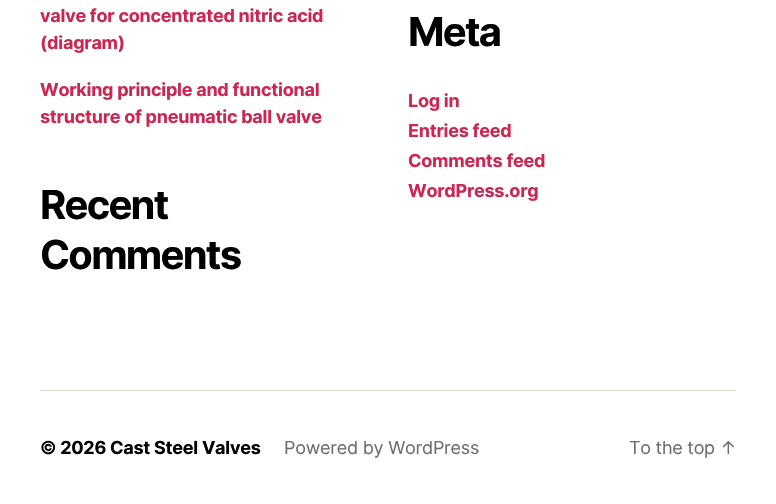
#include "include/core/SkBlurTypes.h"
#include "include/core/SkCanvas.h"
#include "include/core/SkData.h"
#include "include/core/SkFont.h"
#include "include/core/SkFontMgr.h"
#include "include/core/SkImage.h"
#include "include/core/SkMaskFilter.h"
#include "include/core/SkPaint.h"
#include "include/core/SkPathBuilder.h"
#include "include/core/SkTextBlob.h"
#include "include/effects/SkDashPathEffect.h"
#include "include/effects/SkGradientShader.h"
#include "include/utils/SkParsePath.h"

extern sk_sp<SkFontMgr> fontMgr;

static SkFont font(const char* family, int weight, float size, bool italic = false) {
    SkFontStyle style(weight, SkFontStyle::kNormal_Width,
        italic ? SkFontStyle::kItalic_Slant : SkFontStyle::kUpright_Slant);
    SkFont result(fontMgr->matchFamilyStyle(family, style), size);
    result.setSubpixel(true);
    return result;
}

static void drawTracked(SkCanvas* canvas, const char* s, float x, float y, const SkFont& font, const SkPaint& ink, float letter, float word) {
    std::vector<SkGlyphID> glyphs(font.countText(s, strlen(s), SkTextEncoding::kUTF8));
    std::vector<float> xs(glyphs.size());
    font.textToGlyphs(s, strlen(s), SkTextEncoding::kUTF8, glyphs);
    font.getXPos(glyphs, xs, x);
    float extra = 0;
    for (size_t i = 0; i < glyphs.size(); i++) {
        xs[i] += extra;
        extra += letter + word * (glyphs[i] == font.unicharToGlyph(' '));
    }
    canvas->drawTextBlob(SkTextBlob::MakeFromPosHGlyphs(glyphs, xs, y, font), 0, 0, ink);
}

static void fillRect(SkCanvas* canvas, float x, float y, float w, float h, SkColor color) {
    SkPaint ink(SkColor4f::FromColor(color));
    ink.setAntiAlias(true);
    canvas->drawRect(SkRect::MakeXYWH(x, y, w, h), ink);
}

void draw(SkCanvas* canvas) {
    SkPaint paint;
    paint.setAntiAlias(true);
    canvas->clear(0xFFFFFFFF);
    fillRect(canvas, 40, 390, 696, 1, 0xFFDCD7CA);
    SkFont font1 = font("Inter", 700, 18);
    paint.setColor(0xFFCD2653);
    drawTracked(canvas, "valve for concentrated nitric acid", 40, 22, font1, paint, -0.25f, 0);
    drawTracked(canvas, "(diagram)", 40, 49, font1, paint, -0.25f, 0);
    drawTracked(canvas, "Working principle and functional", 40, 96, font1, paint, -0.25f, 0);
    drawTracked(canvas, "structure of pneumatic ball valve", 40, 123, font1, paint, -0.25f, 0);
    SkFont font2 = font("Inter", 700, 40);
    paint.setColor(0xFF000000);
    drawTracked(canvas, "Recent", 40, 219, font2, paint, -1.75f, 0);
    drawTracked(canvas, "Comments", 40, 269, font2, paint, -1.75f, 0);
    drawTracked(canvas, "Meta", 408, 46, font2, paint, -1.75f, 0);
    paint.setColor(0xFFCD2653);
    drawTracked(canvas, "Log in", 408, 107, font1, paint, -0.25f, 0);
    drawTracked(canvas, "Entries feed", 408, 137, font1, paint, -0.25f, 0);
    drawTracked(canvas, "Comments feed", 408, 167, font1, paint, -0.25f, 0);
    drawTracked(canvas, "WordPress.org", 408, 197, font1, paint, -0.25f, 0);
    paint.setColor(0xFF000000);
    drawTracked(canvas, "© 2026 Cast Steel Valves", 40, 454, font1, paint, -0.25f, 0);
    SkFont font3 = font("Inter", 400, 18);
    paint.setColor(0xFF6D6D6D);
    drawTracked(canvas, "Powered by WordPress", 284, 454, font3, paint, -0.25f, 0);
    drawTracked(canvas, "To the top ↑", 629, 454, font3, paint, -0.25f, 0);
}
